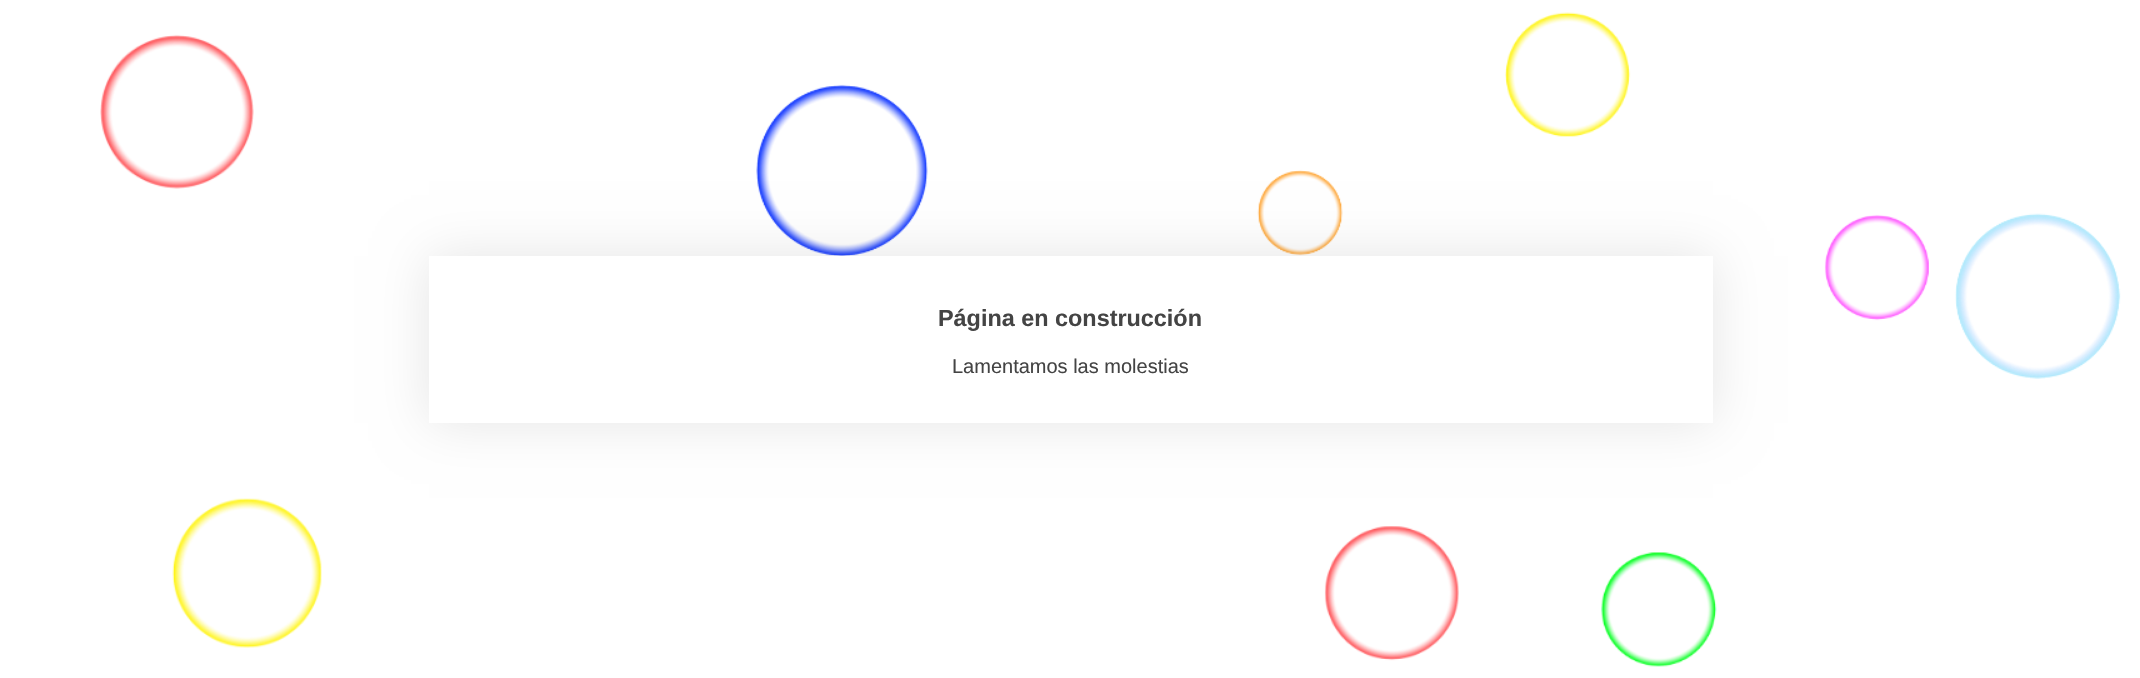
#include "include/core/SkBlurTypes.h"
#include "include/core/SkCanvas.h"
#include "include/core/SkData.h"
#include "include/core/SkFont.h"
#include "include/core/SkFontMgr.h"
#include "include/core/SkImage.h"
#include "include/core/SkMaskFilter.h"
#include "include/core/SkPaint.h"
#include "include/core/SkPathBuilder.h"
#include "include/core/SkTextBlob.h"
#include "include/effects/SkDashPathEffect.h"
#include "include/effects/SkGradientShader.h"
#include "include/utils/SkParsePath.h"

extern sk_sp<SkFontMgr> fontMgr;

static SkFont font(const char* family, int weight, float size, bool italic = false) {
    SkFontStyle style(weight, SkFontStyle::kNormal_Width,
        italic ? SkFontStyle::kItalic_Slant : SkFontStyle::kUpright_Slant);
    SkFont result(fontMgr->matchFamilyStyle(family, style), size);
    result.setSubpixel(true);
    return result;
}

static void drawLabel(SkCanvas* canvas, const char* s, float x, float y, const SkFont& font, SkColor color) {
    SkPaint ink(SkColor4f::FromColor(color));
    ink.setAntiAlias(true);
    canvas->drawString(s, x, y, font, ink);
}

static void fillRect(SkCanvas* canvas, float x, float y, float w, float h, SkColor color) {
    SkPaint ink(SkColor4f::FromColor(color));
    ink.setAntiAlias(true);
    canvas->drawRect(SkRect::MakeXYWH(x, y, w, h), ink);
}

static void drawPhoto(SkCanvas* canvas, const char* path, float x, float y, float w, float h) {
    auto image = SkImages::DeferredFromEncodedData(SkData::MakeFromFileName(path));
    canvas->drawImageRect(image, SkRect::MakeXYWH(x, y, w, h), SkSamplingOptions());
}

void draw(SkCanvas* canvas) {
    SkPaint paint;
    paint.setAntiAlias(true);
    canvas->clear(0xFFFFFFFF);
    drawPhoto(canvas, "assets/img1.png", 100, 12, 2021, 655);
    paint.setColor(0x1A000000);
    paint.setMaskFilter(SkMaskFilter::MakeBlur(kNormal_SkBlurStyle, 25));
    canvas->drawRect(SkRect::MakeXYWH(429, 256, 1284, 167), paint);
    paint.setMaskFilter(nullptr);
    fillRect(canvas, 429, 256, 1284, 167, 0xFFFFFFFF);
    SkFont font1 = font("Liberation Sans", 700, 23.4f);
    drawLabel(canvas, "Página en construcción", 938, 326, font1, 0xFF444444);
    SkFont font2 = font("Liberation Sans", 400, 20);
    drawLabel(canvas, "Lamentamos las molestias", 952, 373, font2, 0xFF444444);
}
